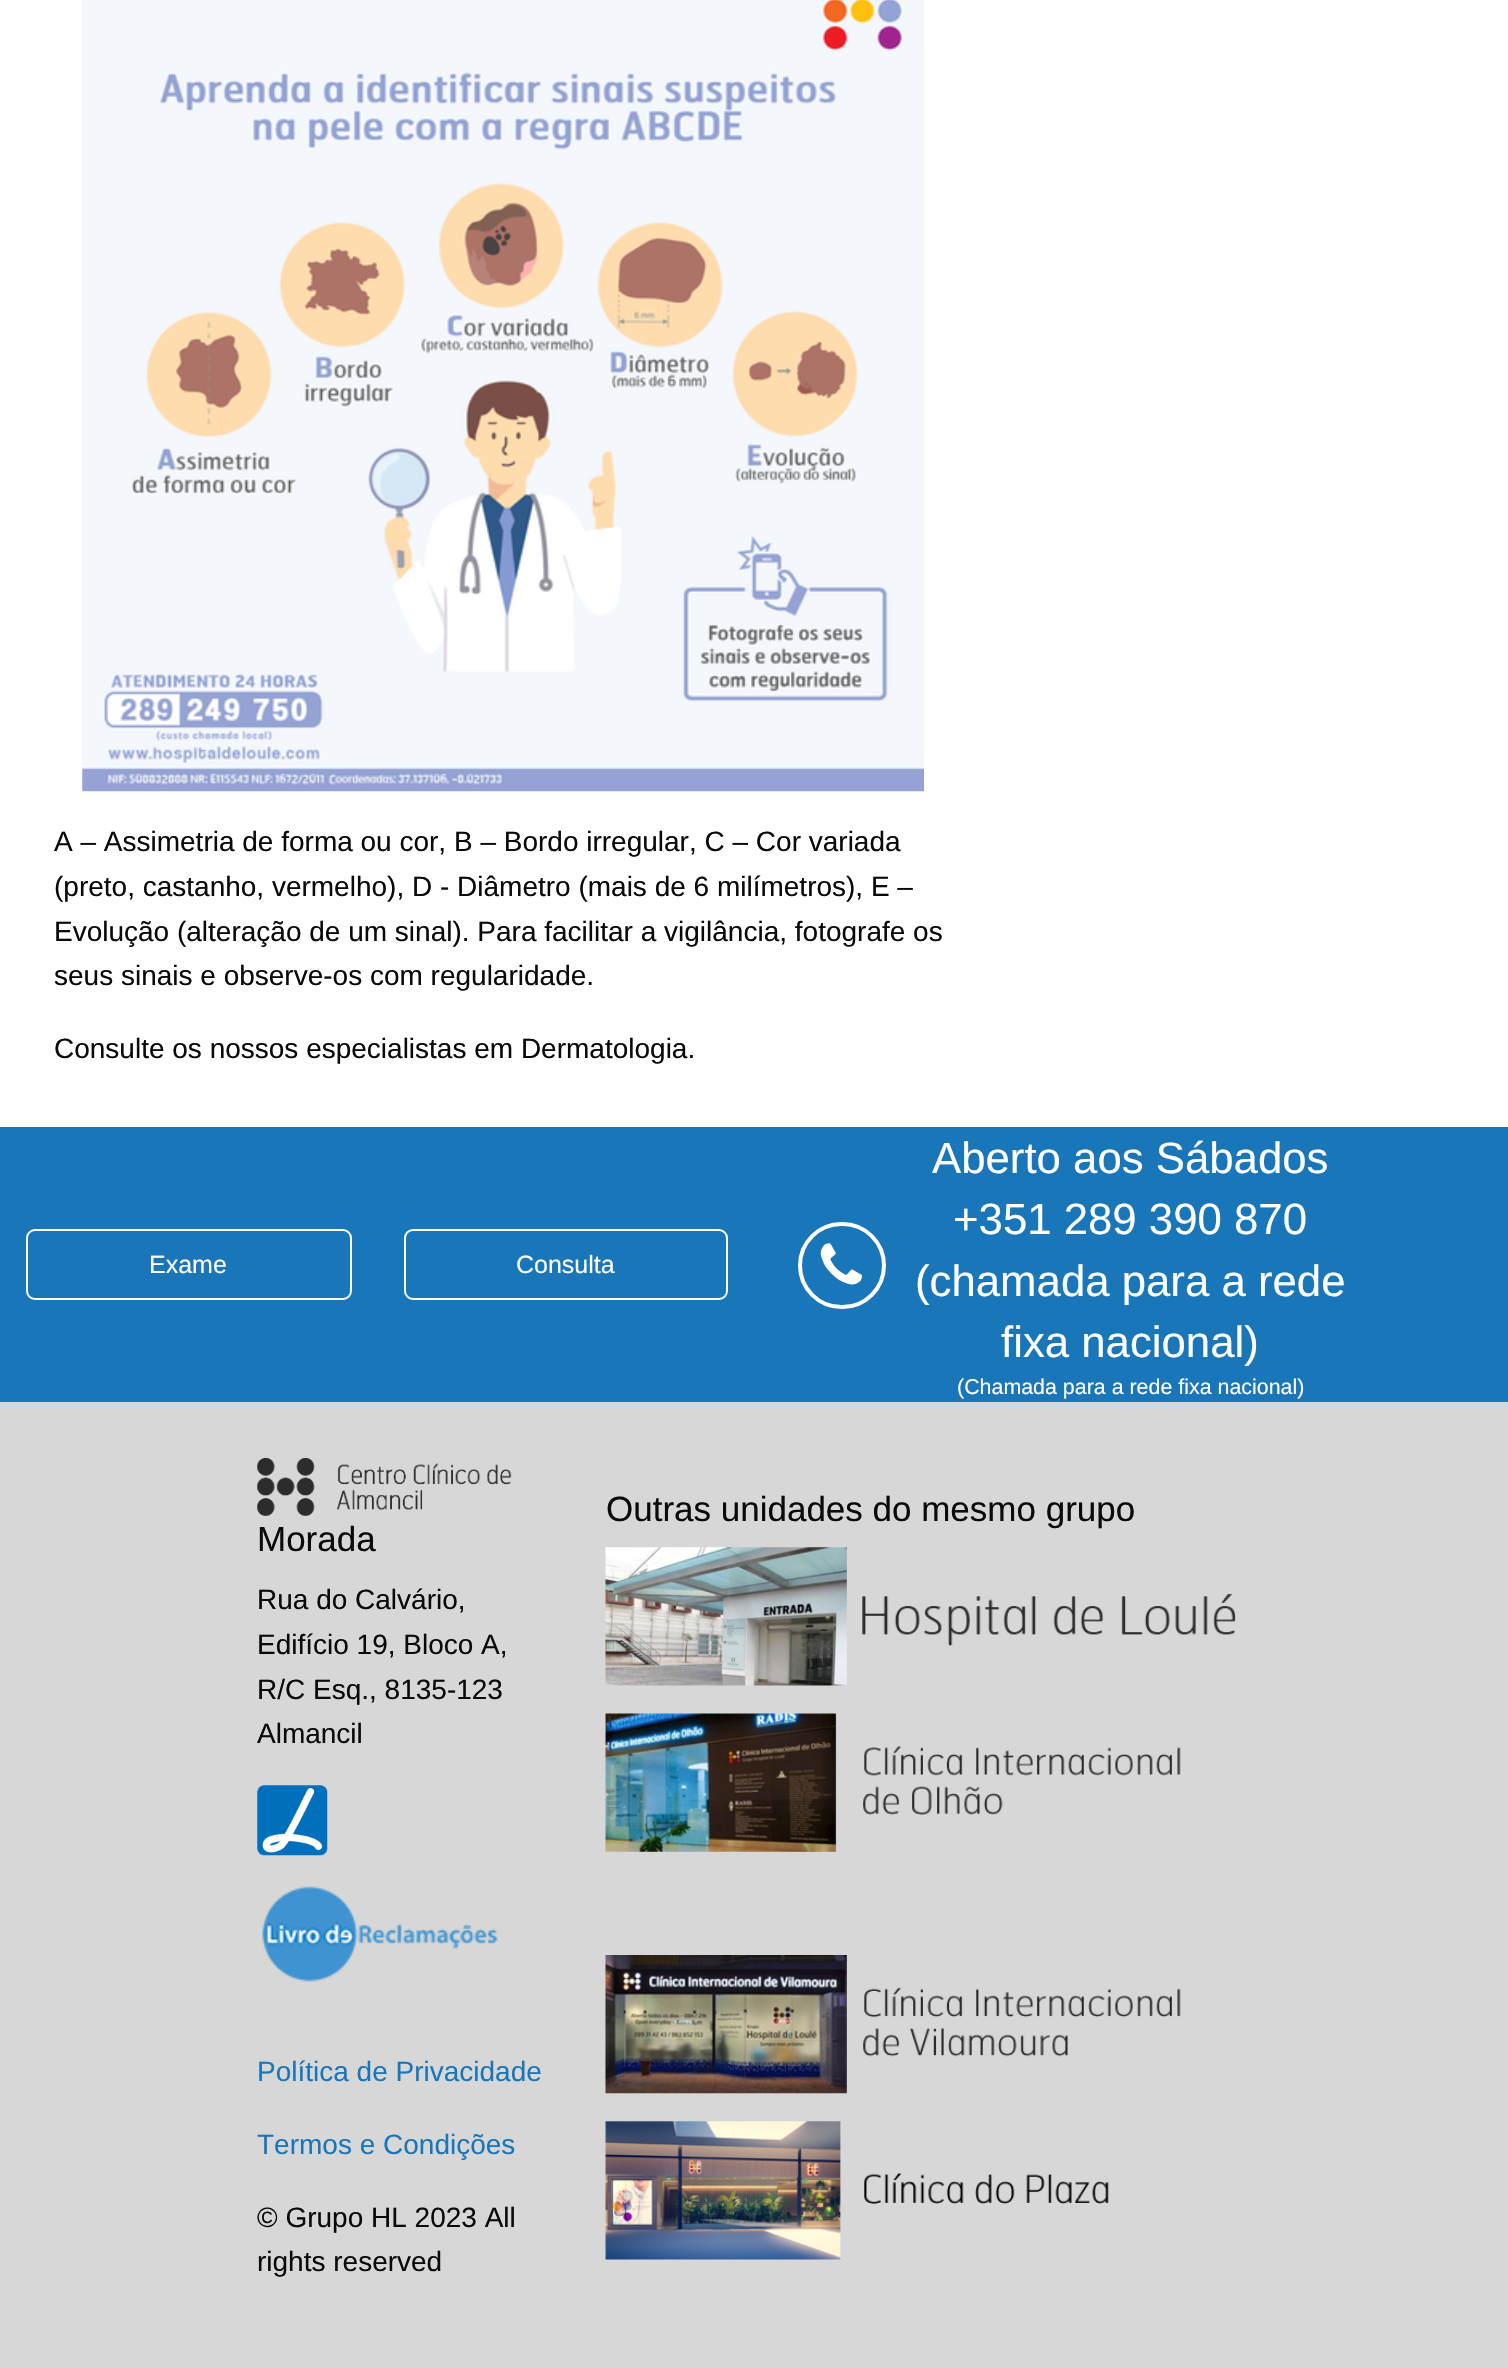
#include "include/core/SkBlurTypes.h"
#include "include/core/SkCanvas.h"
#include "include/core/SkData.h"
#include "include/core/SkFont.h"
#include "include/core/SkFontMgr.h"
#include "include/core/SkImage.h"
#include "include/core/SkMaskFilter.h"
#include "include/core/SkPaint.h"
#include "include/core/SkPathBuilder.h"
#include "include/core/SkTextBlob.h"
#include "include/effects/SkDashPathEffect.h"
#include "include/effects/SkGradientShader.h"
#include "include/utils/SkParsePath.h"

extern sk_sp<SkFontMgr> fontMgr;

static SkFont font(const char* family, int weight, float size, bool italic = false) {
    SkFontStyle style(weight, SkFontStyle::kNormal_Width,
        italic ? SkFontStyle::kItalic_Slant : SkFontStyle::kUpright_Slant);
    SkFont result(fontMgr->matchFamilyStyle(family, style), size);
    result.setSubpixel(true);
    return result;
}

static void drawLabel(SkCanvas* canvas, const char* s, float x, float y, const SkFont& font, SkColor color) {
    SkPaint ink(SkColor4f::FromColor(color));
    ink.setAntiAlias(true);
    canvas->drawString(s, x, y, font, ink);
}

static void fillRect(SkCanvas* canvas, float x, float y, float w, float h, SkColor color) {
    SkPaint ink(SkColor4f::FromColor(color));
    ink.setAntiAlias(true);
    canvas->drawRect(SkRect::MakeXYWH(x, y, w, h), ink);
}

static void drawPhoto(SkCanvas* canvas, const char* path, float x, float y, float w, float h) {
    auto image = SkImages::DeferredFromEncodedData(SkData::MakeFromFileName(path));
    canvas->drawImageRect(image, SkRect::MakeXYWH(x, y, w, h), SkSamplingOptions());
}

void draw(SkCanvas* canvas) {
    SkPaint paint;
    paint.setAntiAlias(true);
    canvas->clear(0xFFFFFFFF);
    drawPhoto(canvas, "assets/img1.png", 82, 0, 842, 792);
    SkFont font1 = font("Liberation Sans", 400, 28);
    drawLabel(canvas, "A – Assimetria de forma ou cor, B – Bordo irregular, C – Cor variada", 54, 851, font1, 0xFF0A0A0A);
    drawLabel(canvas, "(preto, castanho, vermelho), D - Diâmetro (mais de 6 milímetros), E –", 54, 896, font1, 0xFF0A0A0A);
    drawLabel(canvas, "Evolução (alteração de um sinal). Para facilitar a vigilância, fotografe os", 54, 941, font1, 0xFF0A0A0A);
    drawLabel(canvas, "seus sinais e observe-os com regularidade.", 54, 985, font1, 0xFF0A0A0A);
    drawLabel(canvas, "Consulte os nossos especialistas em Dermatologia.", 54, 1058, font1, 0xFF0A0A0A);
    fillRect(canvas, 0, 1127, 1508, 275, 0xFF1876B9);
    paint.setStroke(true);
    paint.setStrokeWidth(2);
    paint.setColor(0xFFFEFEFE);
    canvas->drawRoundRect(SkRect::MakeXYWH(27, 1230, 324, 69), 8, 8, paint);
    SkFont font2 = font("Liberation Sans", 400, 25);
    drawLabel(canvas, "Exame", 149, 1273, font2, 0xFFFEFEFE);
    canvas->drawRoundRect(SkRect::MakeXYWH(405, 1230, 322, 69), 8, 8, paint);
    drawLabel(canvas, "Consulta", 516, 1273, font2, 0xFFFEFEFE);
    paint.setStrokeWidth(4);
    canvas->drawRoundRect(SkRect::MakeXYWH(800, 1224, 84, 83), 41.5f, 41.5f, paint);
    drawPhoto(canvas, "assets/img2.png", 820, 1243, 42, 42);
    SkFont font3 = font("Liberation Sans", 400, 43.75f);
    drawLabel(canvas, "Aberto aos Sábados", 932, 1173, font3, 0xFFFEFEFE);
    drawLabel(canvas, "+351 289 390 870", 953, 1234, font3, 0xFFFEFEFE);
    drawLabel(canvas, "(chamada para a rede", 915, 1296, font3, 0xFFFEFEFE);
    drawLabel(canvas, "fixa nacional)", 1001, 1357, font3, 0xFFFEFEFE);
    SkFont font4 = font("Liberation Sans", 400, 21.4f);
    drawLabel(canvas, "(Chamada para a rede fixa nacional)", 957, 1394, font4, 0xFFFEFEFE);
    fillRect(canvas, 0, 1402, 1508, 966, 0xFFD8D7D7);
    SkFont font5 = font("Liberation Sans", 400, 35);
    drawLabel(canvas, "Outras unidades do mesmo grupo", 606, 1521, font5, 0xFF0A0A0A);
    drawPhoto(canvas, "assets/img3.png", 605, 1547, 631, 139);
    drawPhoto(canvas, "assets/img4.png", 605, 1713, 576, 139);
    drawPhoto(canvas, "assets/img5.png", 605, 1955, 576, 139);
    drawPhoto(canvas, "assets/img6.png", 605, 2121, 504, 139);
    drawPhoto(canvas, "assets/img7.png", 257, 1458, 255, 58);
    drawLabel(canvas, "Morada", 257, 1551, font5, 0xFF0A0A0A);
    drawLabel(canvas, "Rua do Calvário,", 257, 1609, font1, 0xFF0A0A0A);
    drawLabel(canvas, "Edifício 19, Bloco A,", 257, 1654, font1, 0xFF0A0A0A);
    drawLabel(canvas, "R/C Esq., 8135-123", 257, 1699, font1, 0xFF0A0A0A);
    drawLabel(canvas, "Almancil", 257, 1743, font1, 0xFF0A0A0A);
    drawPhoto(canvas, "assets/img8.png", 257, 1785, 71, 71);
    drawPhoto(canvas, "assets/img9.png", 262, 1886, 236, 96);
    drawLabel(canvas, "Política de Privacidade", 257, 2081, font1, 0xFF1876B9);
    drawLabel(canvas, "Termos e Condições", 257, 2154, font1, 0xFF1876B9);
    drawLabel(canvas, "© Grupo HL 2023 All", 257, 2227, font1, 0xFF0A0A0A);
    drawLabel(canvas, "rights reserved", 257, 2271, font1, 0xFF0A0A0A);
}
